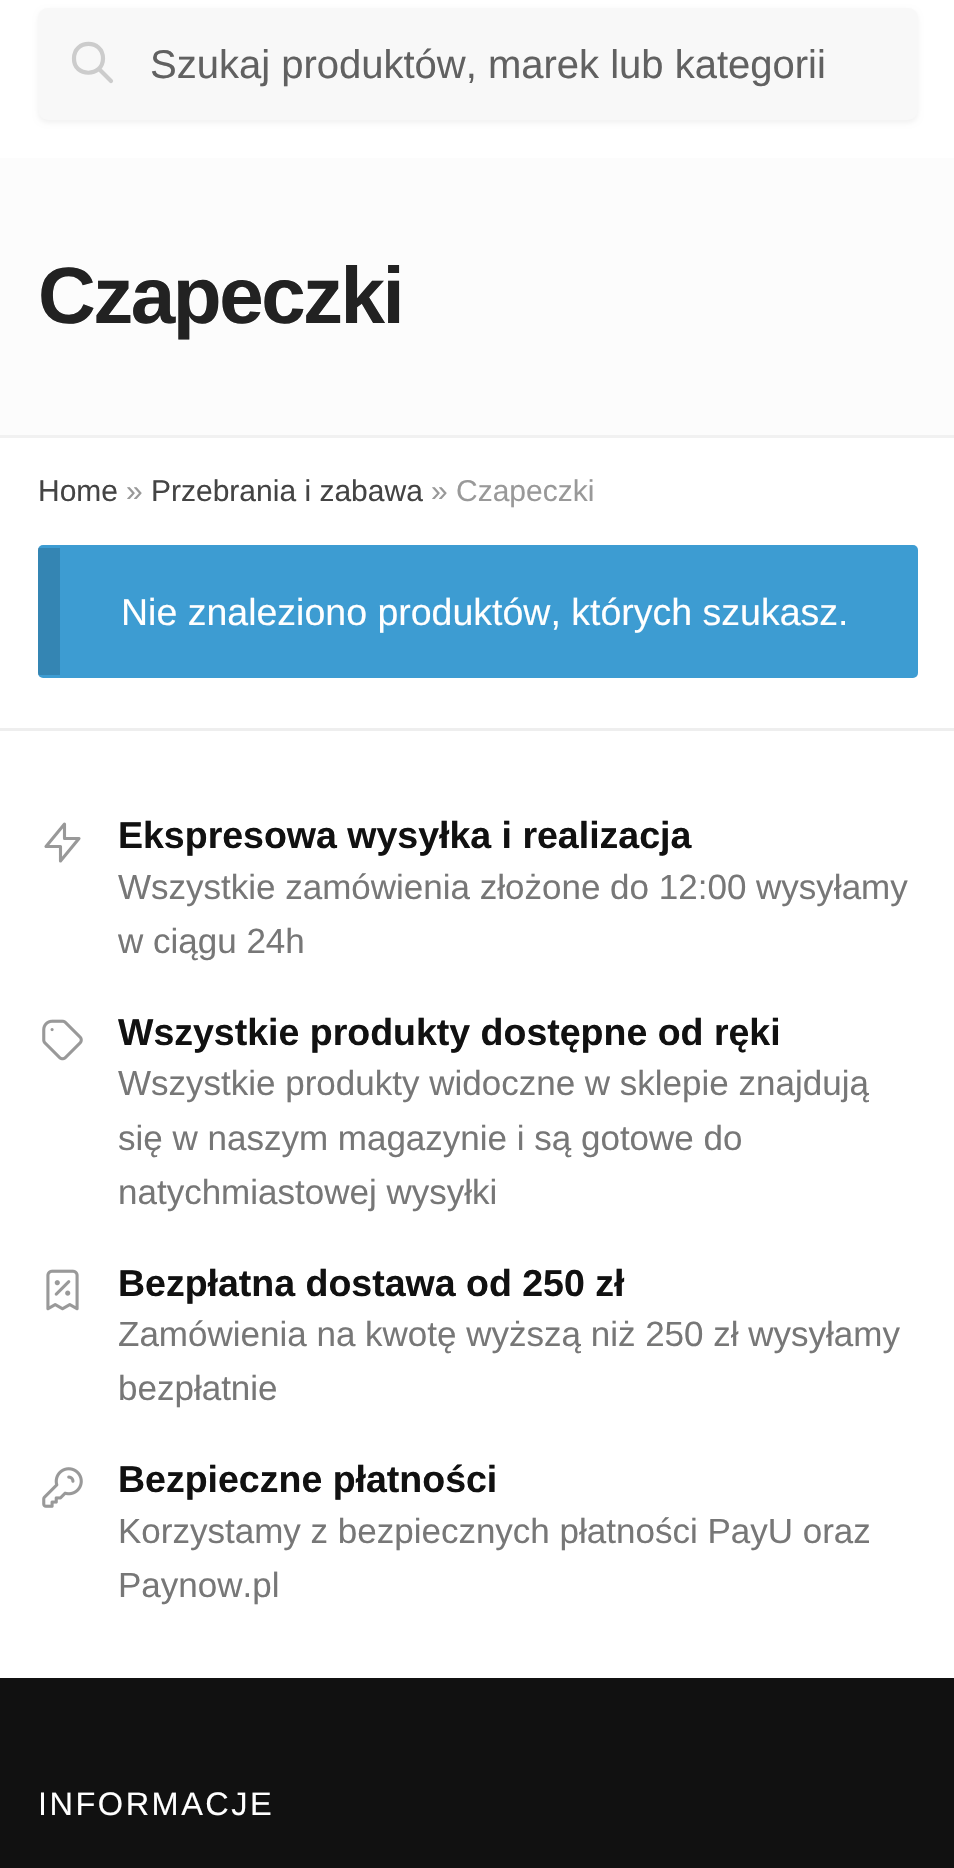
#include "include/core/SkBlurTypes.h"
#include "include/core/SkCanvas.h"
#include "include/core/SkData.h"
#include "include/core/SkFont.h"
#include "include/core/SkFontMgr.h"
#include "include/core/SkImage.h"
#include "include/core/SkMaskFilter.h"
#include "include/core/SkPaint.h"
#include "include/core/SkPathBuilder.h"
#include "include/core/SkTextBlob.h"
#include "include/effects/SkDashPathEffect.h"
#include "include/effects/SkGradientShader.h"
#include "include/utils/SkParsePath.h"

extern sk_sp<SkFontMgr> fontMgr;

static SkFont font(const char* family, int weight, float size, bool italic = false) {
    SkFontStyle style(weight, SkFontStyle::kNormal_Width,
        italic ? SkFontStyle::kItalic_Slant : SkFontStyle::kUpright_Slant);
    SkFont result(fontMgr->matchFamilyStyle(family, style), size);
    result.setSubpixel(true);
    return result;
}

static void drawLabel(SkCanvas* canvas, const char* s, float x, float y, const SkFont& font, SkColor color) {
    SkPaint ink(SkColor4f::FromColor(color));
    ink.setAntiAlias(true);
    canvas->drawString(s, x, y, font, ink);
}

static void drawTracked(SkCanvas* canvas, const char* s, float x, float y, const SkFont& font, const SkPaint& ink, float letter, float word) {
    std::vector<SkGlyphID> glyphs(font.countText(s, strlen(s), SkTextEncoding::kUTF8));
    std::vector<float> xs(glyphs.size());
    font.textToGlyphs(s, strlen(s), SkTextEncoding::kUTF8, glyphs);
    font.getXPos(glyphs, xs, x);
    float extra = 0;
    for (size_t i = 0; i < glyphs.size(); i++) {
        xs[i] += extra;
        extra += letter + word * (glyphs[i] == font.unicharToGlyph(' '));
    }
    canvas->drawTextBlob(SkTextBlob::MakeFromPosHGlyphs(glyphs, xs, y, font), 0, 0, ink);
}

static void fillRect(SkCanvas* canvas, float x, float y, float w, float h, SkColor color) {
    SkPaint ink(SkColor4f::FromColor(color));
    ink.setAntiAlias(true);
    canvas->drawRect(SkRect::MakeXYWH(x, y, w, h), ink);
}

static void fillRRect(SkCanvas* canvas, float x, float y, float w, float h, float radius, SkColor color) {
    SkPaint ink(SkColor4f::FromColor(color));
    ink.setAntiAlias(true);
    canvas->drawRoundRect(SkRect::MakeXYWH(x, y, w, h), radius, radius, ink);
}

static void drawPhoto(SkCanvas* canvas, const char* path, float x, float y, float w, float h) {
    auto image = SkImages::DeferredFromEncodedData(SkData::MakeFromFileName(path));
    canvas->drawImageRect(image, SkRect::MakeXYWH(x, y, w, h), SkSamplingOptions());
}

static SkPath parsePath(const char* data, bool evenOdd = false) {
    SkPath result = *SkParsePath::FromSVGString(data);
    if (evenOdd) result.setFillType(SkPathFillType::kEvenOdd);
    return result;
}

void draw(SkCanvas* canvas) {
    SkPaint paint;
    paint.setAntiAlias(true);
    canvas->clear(0xFFFFFFFF);
    paint.setColor(0x0D000000);
    paint.setMaskFilter(SkMaskFilter::MakeBlur(kNormal_SkBlurStyle, 2.5f));
    canvas->drawRoundRect(SkRect::MakeXYWH(38, 10, 880, 113), 10, 10, paint);
    paint.setMaskFilter(nullptr);
    fillRRect(canvas, 38, 8, 880, 112, 10, 0xFFF8F8F8);
    paint.setStroke(true);
    paint.setStrokeWidth(4.2f);
    paint.setStrokeCap(SkPaint::kRound_Cap);
    paint.setStrokeJoin(SkPaint::kRound_Join);
    paint.setColor(0xFFCCCCCC);
    canvas->drawPath(parsePath("M111 81L99 69M103 58.5C103 77.5 73.5 77.5 74 58.5C74 39 103 39 103 58.5Z"), paint);
    SkFont font1 = font("Liberation Sans", 400, 40);
    drawLabel(canvas, "Szukaj produktów, marek lub kategorii", 150, 78, font1, 0xFF616161);
    fillRect(canvas, 0, 158, 954, 277, 0xFFFCFCFC);
    fillRect(canvas, 0, 435, 954, 3, 0xFFF1F1F1);
    SkFont font2 = font("Liberation Sans", 700, 80);
    paint.setStroke(false);
    paint.setColor(0xFF222222);
    drawTracked(canvas, "Czapeczki", 38, 323, font2, paint, -2.5f, 0);
    SkFont font3 = font("Liberation Sans", 400, 30);
    drawLabel(canvas, "Home", 38, 501, font3, 0xFF444444);
    drawLabel(canvas, "»", 126, 501, font3, 0xFF999999);
    drawLabel(canvas, "Przebrania i zabawa", 151, 501, font3, 0xFF444444);
    drawLabel(canvas, "» Czapeczki", 431, 501, font3, 0xFF999999);
    fillRRect(canvas, 38, 545, 880, 133, 5, 0xFF3D9CD2);
    fillRect(canvas, 38, 548, 22, 127, 0x26000000);
    SkFont font4 = font("Liberation Sans", 400, 37.5f);
    drawLabel(canvas, "Nie znaleziono produktów, których szukasz.", 121, 625, font4, 0xFFFFFFFF);
    fillRect(canvas, 0, 728, 954, 3, 0xFFEEEEEE);
    SkFont font5 = font("Liberation Sans", 700, 37.5f);
    drawLabel(canvas, "Ekspresowa wysyłka i realizacja", 118, 848, font5, 0xFF111111);
    paint.setStroke(true);
    paint.setStrokeWidth(3.1f);
    paint.setColor(0xFF999999);
    canvas->drawPath(parsePath("M64.5 838.5V824L46 846.5H60.5V861L79 838.5Z"), paint);
    SkFont font6 = font("Liberation Sans", 400, 35);
    drawLabel(canvas, "Wszystkie zamówienia złożone do 12:00 wysyłamy", 118, 899, font6, 0xFF777777);
    drawLabel(canvas, "w ciągu 24h", 118, 953, font6, 0xFF777777);
    drawLabel(canvas, "Wszystkie produkty dostępne od ręki", 118, 1045, font5, 0xFF111111);
    drawPhoto(canvas, "assets/img1.png", 42, 1019, 41, 42);
    drawLabel(canvas, "Wszystkie produkty widoczne w sklepie znajdują", 118, 1095, font6, 0xFF777777);
    drawLabel(canvas, "się w naszym magazynie i są gotowe do", 118, 1150, font6, 0xFF777777);
    drawLabel(canvas, "natychmiastowej wysyłki", 118, 1204, font6, 0xFF777777);
    drawLabel(canvas, "Bezpłatna dostawa od 250 zł", 118, 1296, font5, 0xFF111111);
    drawPhoto(canvas, "assets/img2.png", 46, 1269, 33, 42);
    drawLabel(canvas, "Zamówienia na kwotę wyższą niż 250 zł wysyłamy", 118, 1346, font6, 0xFF777777);
    drawLabel(canvas, "bezpłatnie", 118, 1400, font6, 0xFF777777);
    drawLabel(canvas, "Bezpieczne płatności", 118, 1492, font5, 0xFF111111);
    drawPhoto(canvas, "assets/img3.png", 42, 1467, 41, 41);
    drawLabel(canvas, "Korzystamy z bezpiecznych płatności PayU oraz", 118, 1543, font6, 0xFF777777);
    drawLabel(canvas, "Paynow.pl", 118, 1597, font6, 0xFF777777);
    fillRect(canvas, 0, 1678, 954, 190, 0xFF111111);
    SkFont font7 = font("Liberation Sans", 400, 32.5f);
    paint.setStroke(false);
    paint.setColor(0xFFFFFFFF);
    drawTracked(canvas, "INFORMACJE", 38, 1815, font7, paint, 2.5f, 0);
}
